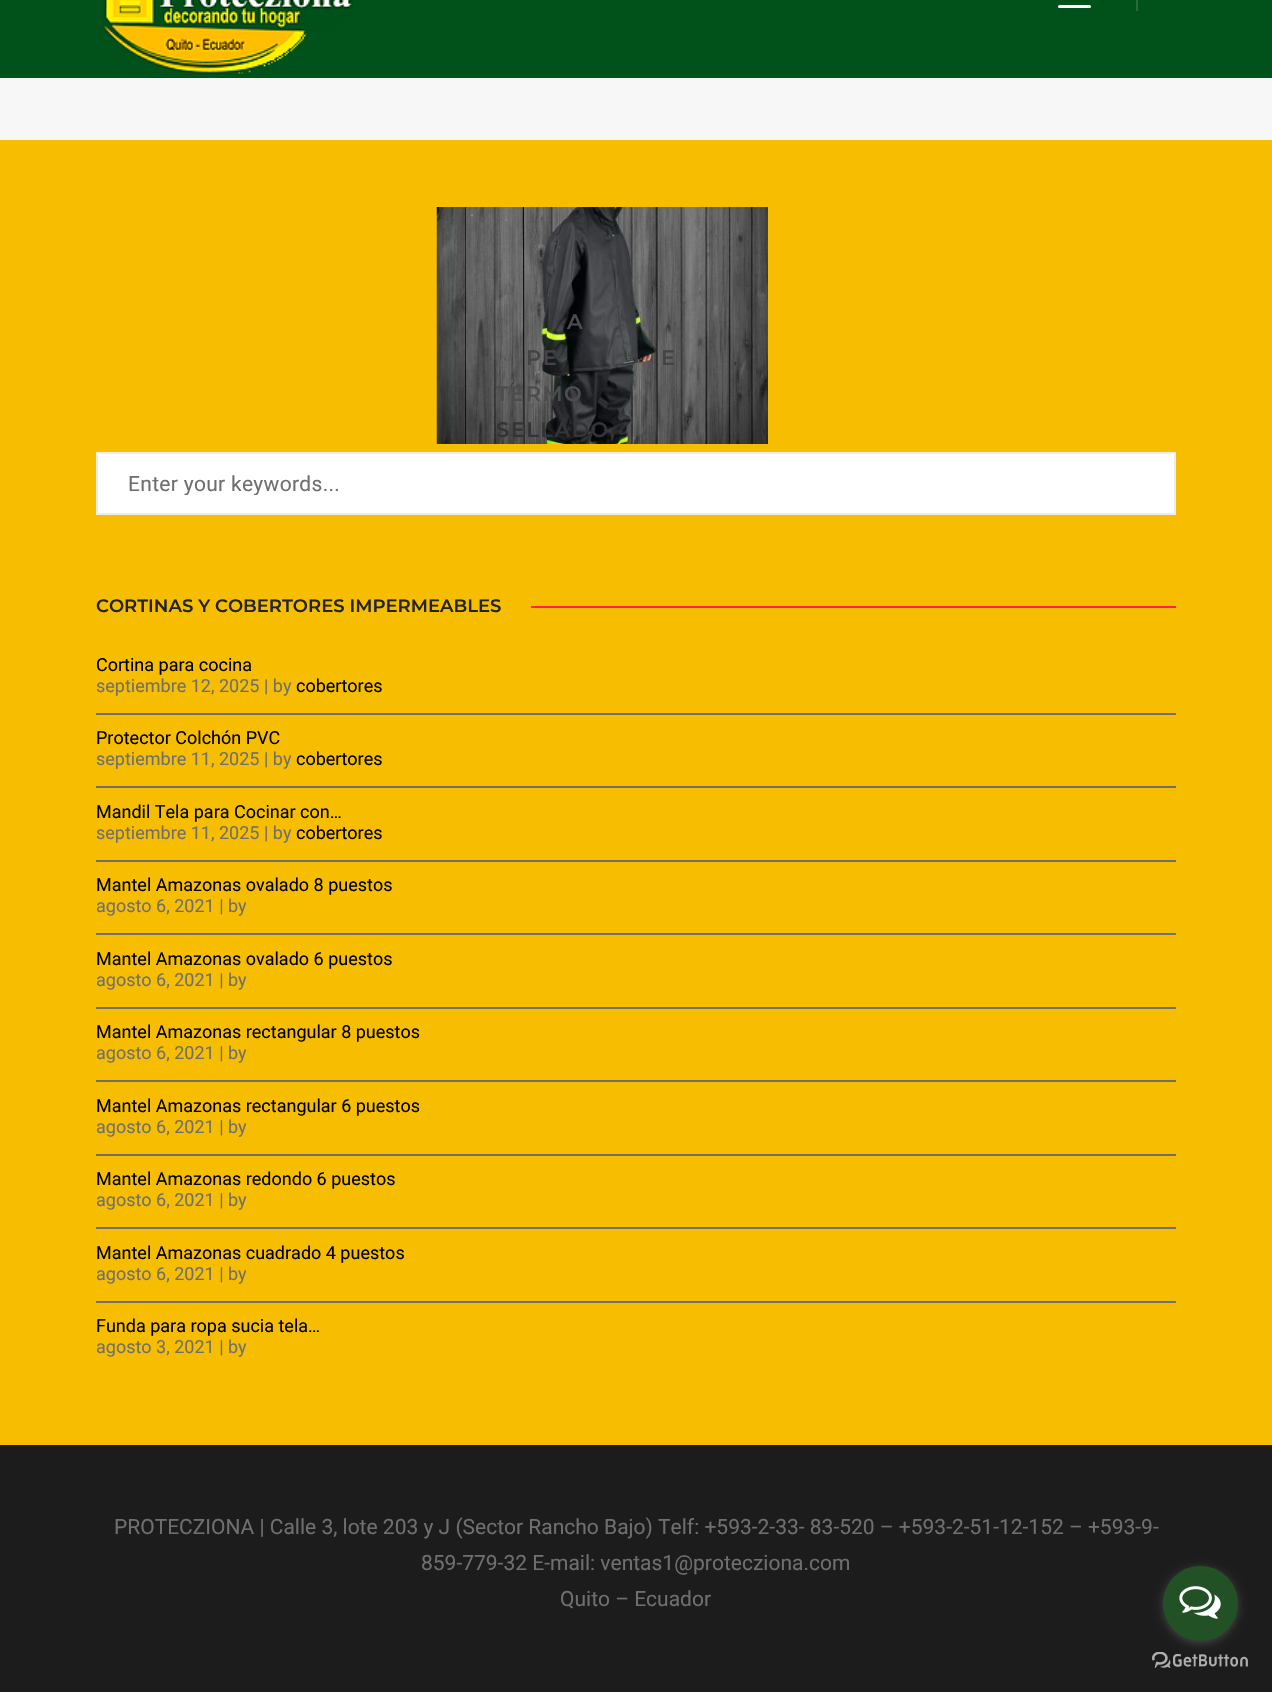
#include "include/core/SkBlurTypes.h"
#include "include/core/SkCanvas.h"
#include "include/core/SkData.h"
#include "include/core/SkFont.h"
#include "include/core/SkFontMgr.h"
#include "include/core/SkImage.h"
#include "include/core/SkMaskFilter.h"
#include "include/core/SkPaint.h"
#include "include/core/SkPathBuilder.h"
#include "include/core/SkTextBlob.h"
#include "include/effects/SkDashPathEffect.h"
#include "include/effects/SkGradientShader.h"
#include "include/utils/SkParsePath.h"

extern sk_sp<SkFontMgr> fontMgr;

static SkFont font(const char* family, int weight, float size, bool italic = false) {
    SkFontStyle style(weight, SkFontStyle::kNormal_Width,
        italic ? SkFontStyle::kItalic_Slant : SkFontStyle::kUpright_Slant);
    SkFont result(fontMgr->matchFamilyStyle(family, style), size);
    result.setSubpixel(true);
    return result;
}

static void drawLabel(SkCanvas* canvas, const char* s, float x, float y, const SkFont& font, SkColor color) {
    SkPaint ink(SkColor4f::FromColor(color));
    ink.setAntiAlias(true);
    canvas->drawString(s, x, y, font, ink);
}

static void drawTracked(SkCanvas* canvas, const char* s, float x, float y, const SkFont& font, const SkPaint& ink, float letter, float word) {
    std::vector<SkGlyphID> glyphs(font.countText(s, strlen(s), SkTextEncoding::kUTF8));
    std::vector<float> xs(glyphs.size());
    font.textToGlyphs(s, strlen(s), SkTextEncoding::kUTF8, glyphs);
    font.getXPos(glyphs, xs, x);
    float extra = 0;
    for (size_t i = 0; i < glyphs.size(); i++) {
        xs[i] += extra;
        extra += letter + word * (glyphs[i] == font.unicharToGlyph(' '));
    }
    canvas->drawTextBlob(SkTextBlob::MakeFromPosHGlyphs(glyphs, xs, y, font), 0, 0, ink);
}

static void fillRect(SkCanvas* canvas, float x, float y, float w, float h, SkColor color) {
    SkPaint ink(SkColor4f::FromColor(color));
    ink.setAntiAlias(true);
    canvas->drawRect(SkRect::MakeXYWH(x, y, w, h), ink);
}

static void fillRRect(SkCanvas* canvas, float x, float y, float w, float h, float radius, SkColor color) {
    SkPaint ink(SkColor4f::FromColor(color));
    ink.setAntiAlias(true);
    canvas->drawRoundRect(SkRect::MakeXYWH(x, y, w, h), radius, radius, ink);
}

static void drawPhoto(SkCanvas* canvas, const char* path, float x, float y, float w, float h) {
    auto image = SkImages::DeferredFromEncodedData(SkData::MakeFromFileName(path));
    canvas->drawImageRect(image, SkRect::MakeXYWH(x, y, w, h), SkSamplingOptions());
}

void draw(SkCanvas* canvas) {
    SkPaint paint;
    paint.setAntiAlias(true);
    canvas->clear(0xFFF7BD00);
    fillRect(canvas, 0, 0, 1272, 78, 0xFF01511B);
    drawPhoto(canvas, "assets/img1.png", 102, 0, 252, 75);
    fillRRect(canvas, 1058, 5, 33, 3, 1.5f, 0xFFFFFFFF);
    fillRect(canvas, 1136, 0, 2, 11, 0xFF276B3D);
    fillRect(canvas, 0, 78, 1272, 62, 0xFFF7F7F7);
    drawPhoto(canvas, "assets/img2.png", 436, 207, 332, 237);
    SkFont font1 = font("Montserrat", 600, 21);
    paint.setColor(0xFF4B4C4C);
    drawTracked(canvas, "A", 567, 329, font1, paint, 1.5f, 0);
    paint.setColor(0xFF444446);
    drawTracked(canvas, "PE", 526, 365, font1, paint, 1.5f, 0);
    drawTracked(canvas, "E", 661, 365, font1, paint, 1.5f, 0);
    paint.setColor(0xFF4B4C4C);
    drawTracked(canvas, "TERMO", 496, 401, font1, paint, 1.5f, 0);
    paint.setColor(0xFF333436);
    drawTracked(canvas, "SELLADO,", 496, 437, font1, paint, 1.5f, 0);
    paint.setColor(0xFFFFFFFF);
    canvas->drawRect(SkRect::MakeXYWH(97, 453, 1078, 61), paint);
    paint.setStroke(true);
    paint.setStrokeWidth(2);
    paint.setColor(0xFFEDEDED);
    canvas->drawRect(SkRect::MakeXYWH(97, 453, 1078, 61), paint);
    canvas->save();
    canvas->clipRect(SkRect::MakeXYWH(128, 471, 994, 24));
    SkFont font2 = font("Roboto", 400, 21);
    paint.setStroke(false);
    paint.setColor(0xFF6F6F6F);
    drawTracked(canvas, "Enter your keywords...", 128, 491, font2, paint, 0.3f, 0);
    canvas->restore();
    SkFont font3 = font("Montserrat", 600, 18);
    drawLabel(canvas, "CORTINAS Y COBERTORES IMPERMEABLES", 96, 612, font3, 0xFF232323);
    fillRect(canvas, 531, 606, 645, 2, 0xFFFF214F);
    fillRect(canvas, 96, 713, 1080, 2, 0xFF6F6F6F);
    SkFont font4 = font("Roboto", 400, 18);
    drawLabel(canvas, "Cortina para cocina", 96, 671, font4, 0xFF000000);
    drawLabel(canvas, "septiembre 12, 2025 | by", 96, 692, font4, 0xFF6F6F6F);
    drawLabel(canvas, "cobertores", 296, 692, font4, 0xFF000000);
    fillRect(canvas, 96, 786, 1080, 2, 0xFF6F6F6F);
    drawLabel(canvas, "Protector Colchón PVC", 96, 744, font4, 0xFF000000);
    drawLabel(canvas, "septiembre 11, 2025 | by", 96, 765, font4, 0xFF6F6F6F);
    drawLabel(canvas, "cobertores", 296, 765, font4, 0xFF000000);
    fillRect(canvas, 96, 860, 1080, 2, 0xFF6F6F6F);
    drawLabel(canvas, "Mandil Tela para Cocinar con…", 96, 818, font4, 0xFF000000);
    drawLabel(canvas, "septiembre 11, 2025 | by", 96, 839, font4, 0xFF6F6F6F);
    drawLabel(canvas, "cobertores", 296, 839, font4, 0xFF000000);
    fillRect(canvas, 96, 933, 1080, 2, 0xFF6F6F6F);
    drawLabel(canvas, "Mantel Amazonas ovalado 8 puestos", 96, 891, font4, 0xFF000000);
    drawLabel(canvas, "agosto 6, 2021 | by", 96, 912, font4, 0xFF6F6F6F);
    fillRect(canvas, 96, 1007, 1080, 2, 0xFF6F6F6F);
    drawLabel(canvas, "Mantel Amazonas ovalado 6 puestos", 96, 965, font4, 0xFF000000);
    drawLabel(canvas, "agosto 6, 2021 | by", 96, 986, font4, 0xFF6F6F6F);
    fillRect(canvas, 96, 1080, 1080, 2, 0xFF6F6F6F);
    drawLabel(canvas, "Mantel Amazonas rectangular 8 puestos", 96, 1038, font4, 0xFF000000);
    drawLabel(canvas, "agosto 6, 2021 | by", 96, 1059, font4, 0xFF6F6F6F);
    fillRect(canvas, 96, 1154, 1080, 2, 0xFF6F6F6F);
    drawLabel(canvas, "Mantel Amazonas rectangular 6 puestos", 96, 1112, font4, 0xFF000000);
    drawLabel(canvas, "agosto 6, 2021 | by", 96, 1133, font4, 0xFF6F6F6F);
    fillRect(canvas, 96, 1227, 1080, 2, 0xFF6F6F6F);
    drawLabel(canvas, "Mantel Amazonas redondo 6 puestos", 96, 1185, font4, 0xFF000000);
    drawLabel(canvas, "agosto 6, 2021 | by", 96, 1206, font4, 0xFF6F6F6F);
    fillRect(canvas, 96, 1301, 1080, 2, 0xFF6F6F6F);
    drawLabel(canvas, "Mantel Amazonas cuadrado 4 puestos", 96, 1259, font4, 0xFF000000);
    drawLabel(canvas, "agosto 6, 2021 | by", 96, 1280, font4, 0xFF6F6F6F);
    drawLabel(canvas, "Funda para ropa sucia tela…", 96, 1332, font4, 0xFF000000);
    drawLabel(canvas, "agosto 3, 2021 | by", 96, 1353, font4, 0xFF6F6F6F);
    fillRect(canvas, 0, 1445, 1272, 247, 0xFF1C1C1C);
    drawLabel(canvas, "PROTECZIONA | Calle 3, lote 203 y J (Sector Rancho Bajo) Telf: +593-2-33- 83-520 – +593-2-51-12-152 – +593-9-", 114, 1534, font2, 0xFF6F6F6F);
    drawLabel(canvas, "859-779-32 E-mail: ventas1@protecziona.com", 421, 1570, font2, 0xFF6F6F6F);
    drawLabel(canvas, "Quito – Ecuador", 560, 1606, font2, 0xFF6F6F6F);
    drawPhoto(canvas, "assets/img4.png", 1152, 1652, 96, 16);
    paint.setColor(0x66888888);
    paint.setMaskFilter(SkMaskFilter::MakeBlur(kNormal_SkBlurStyle, 5));
    canvas->drawRoundRect(SkRect::MakeXYWH(1163, 1568, 75, 75), 37.5f, 37.5f, paint);
    paint.setMaskFilter(nullptr);
    paint.setColor(0xFF215124);
    canvas->drawCircle(1200.5f, 1603.5f, 37.5f, paint);
    drawPhoto(canvas, "assets/img3.png", 1179, 1586, 42, 33);
}
